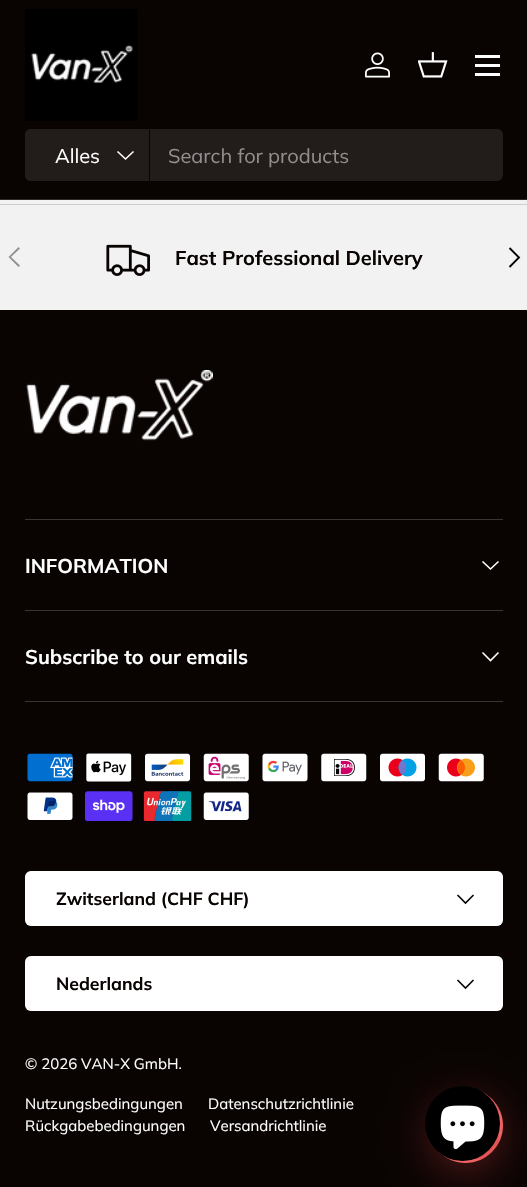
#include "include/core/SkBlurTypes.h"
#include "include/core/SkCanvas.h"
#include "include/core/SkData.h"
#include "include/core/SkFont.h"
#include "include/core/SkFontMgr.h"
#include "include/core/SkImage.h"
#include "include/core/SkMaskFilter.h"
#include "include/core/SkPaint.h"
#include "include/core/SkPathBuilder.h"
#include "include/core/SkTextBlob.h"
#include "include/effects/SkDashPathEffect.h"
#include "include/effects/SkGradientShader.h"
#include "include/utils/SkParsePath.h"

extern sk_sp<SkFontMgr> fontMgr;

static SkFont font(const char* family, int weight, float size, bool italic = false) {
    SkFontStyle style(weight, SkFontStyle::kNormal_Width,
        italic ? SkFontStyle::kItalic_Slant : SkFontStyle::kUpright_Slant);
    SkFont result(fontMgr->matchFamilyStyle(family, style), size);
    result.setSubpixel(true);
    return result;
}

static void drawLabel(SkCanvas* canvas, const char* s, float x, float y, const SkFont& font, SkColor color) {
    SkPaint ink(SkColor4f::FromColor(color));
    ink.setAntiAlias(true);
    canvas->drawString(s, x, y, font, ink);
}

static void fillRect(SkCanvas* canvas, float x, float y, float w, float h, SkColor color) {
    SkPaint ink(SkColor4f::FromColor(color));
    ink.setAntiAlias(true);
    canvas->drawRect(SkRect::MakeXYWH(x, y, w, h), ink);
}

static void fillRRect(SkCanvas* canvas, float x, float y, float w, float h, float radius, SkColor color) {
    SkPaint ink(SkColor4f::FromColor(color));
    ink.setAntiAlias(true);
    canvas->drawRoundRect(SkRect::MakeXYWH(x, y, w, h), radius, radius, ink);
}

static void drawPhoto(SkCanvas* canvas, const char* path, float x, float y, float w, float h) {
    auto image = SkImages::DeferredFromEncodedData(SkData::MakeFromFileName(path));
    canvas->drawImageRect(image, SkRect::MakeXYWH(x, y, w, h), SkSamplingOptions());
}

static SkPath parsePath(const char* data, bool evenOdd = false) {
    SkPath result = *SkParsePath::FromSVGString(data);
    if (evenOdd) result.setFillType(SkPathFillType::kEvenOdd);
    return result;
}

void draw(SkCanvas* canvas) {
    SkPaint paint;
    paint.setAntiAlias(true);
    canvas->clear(0xFFF2F2F2);
    fillRect(canvas, 0, 0, 527, 199, 0xFF090302);
    fillRect(canvas, 0, 199, 527, 1, 0xFF2E2928);
    drawPhoto(canvas, "assets/img1.png", 25, 9, 113, 112);
    drawPhoto(canvas, "assets/img2.png", 365, 52, 25, 26);
    drawPhoto(canvas, "assets/img3.png", 418, 52, 30, 26);
    fillRect(canvas, 475, 55, 25, 3, 0xFFFFFFFF);
    fillRect(canvas, 475, 73, 25, 3, 0xFFFFFFFF);
    fillRect(canvas, 475, 64, 25, 3, 0xFFFFFFFF);
    fillRRect(canvas, 25, 129, 478, 52, 6, 0xFF221C1B);
    paint.setColor(0xFF221C1B);
    canvas->drawPath(parsePath("M31 129H150V181H31C27.5 181 25 178.5 25 175V135C25 131.5 27.5 129 31 129Z"), paint);
    fillRect(canvas, 149, 129, 1, 52, 0xFF090302);
    SkFont font1 = font("Muli", 400, 20);
    drawLabel(canvas, "Alles", 55, 163, font1, 0xFFFFFFFF);
    paint.setStroke(true);
    paint.setStrokeWidth(1.6f);
    paint.setColor(0xFFFFFFFF);
    canvas->drawPath(parsePath("M133.5 151.5L125.5 159L117.5 151.5"), paint);
    drawLabel(canvas, "Search for products", 168, 163, font1, 0xFF918E8D);
    fillRect(canvas, 0, 204, 527, 1, 0xFFCFCECE);
    paint.setStroke(false);
    paint.setColor(0xFF959292);
    canvas->drawPath(parsePath("M8.5 257L18.5 247L20 248.5L11 257L20 265.5L18.5 267Z"), paint);
    paint.setStroke(true);
    paint.setStrokeWidth(1.9f);
    paint.setColor(0xFF090302);
    canvas->drawPath(parsePath("M509.5 248L519 257.5L509.5 267"), paint);
    drawPhoto(canvas, "assets/img4.png", 106, 244, 44, 32);
    SkFont font2 = font("Muli", 700, 20);
    drawLabel(canvas, "Fast Professional Delivery", 175, 265, font2, 0xFF090302);
    fillRect(canvas, 0, 310, 527, 877, 0xFF090302);
    drawPhoto(canvas, "assets/img5.png", 26, 370, 187, 71);
    fillRect(canvas, 25, 519, 478, 1, 0xFF3A3535);
    fillRect(canvas, 25, 610, 478, 1, 0xFF3A3535);
    drawLabel(canvas, "INFORMATION", 25, 573, font2, 0xFFFFFFFF);
    paint.setStrokeWidth(1.6f);
    paint.setColor(0xFFFFFFFF);
    canvas->drawPath(parsePath("M498.5 561.5L490.5 569L482.5 561.5"), paint);
    fillRect(canvas, 25, 701, 478, 1, 0xFF3A3535);
    drawLabel(canvas, "Subscribe to our emails", 25, 664, font2, 0xFFFFFFFF);
    canvas->drawPath(parsePath("M498.5 652.5L490.5 660.5L482.5 652.5"), paint);
    drawPhoto(canvas, "assets/img6.png", 27, 753, 46, 29);
    drawPhoto(canvas, "assets/img7.png", 85, 753, 47, 30);
    drawPhoto(canvas, "assets/img8.png", 145, 753, 45, 29);
    drawPhoto(canvas, "assets/img9.png", 203, 753, 46, 29);
    drawPhoto(canvas, "assets/img10.png", 262, 753, 46, 29);
    drawPhoto(canvas, "assets/img11.png", 321, 753, 46, 29);
    drawPhoto(canvas, "assets/img12.png", 380, 753, 45, 29);
    drawPhoto(canvas, "assets/img13.png", 438, 753, 46, 29);
    drawPhoto(canvas, "assets/img14.png", 27, 792, 46, 28);
    drawPhoto(canvas, "assets/img15.png", 85, 791, 48, 30);
    drawPhoto(canvas, "assets/img16.png", 143, 791, 49, 30);
    drawPhoto(canvas, "assets/img17.png", 203, 792, 46, 28);
    fillRRect(canvas, 25, 871, 478, 55, 6, 0xFFFFFFFF);
    paint.setStrokeWidth(1);
    paint.setColor(0x33FFFFFF);
    canvas->drawRoundRect(SkRect::MakeXYWH(25.5f, 871.5f, 477, 54), 5.5f, 5.5f, paint);
    SkFont font3 = font("Muli", 700, 17.6f);
    drawLabel(canvas, "Zwitserland (CHF CHF)", 56, 905, font3, 0xFF090302);
    paint.setStrokeWidth(1.6f);
    paint.setColor(0xFF090302);
    canvas->drawPath(parsePath("M473.5 895L465.5 903L457.5 895"), paint);
    fillRRect(canvas, 25, 956, 478, 55, 6, 0xFFFFFFFF);
    paint.setStrokeWidth(1);
    paint.setColor(0x33FFFFFF);
    canvas->drawRoundRect(SkRect::MakeXYWH(25.5f, 956.5f, 477, 54), 5.5f, 5.5f, paint);
    drawLabel(canvas, "Nederlands", 56, 990, font3, 0xFF090302);
    paint.setStrokeWidth(1.6f);
    paint.setColor(0xFF090302);
    canvas->drawPath(parsePath("M473.5 980L465.5 988L457.5 980"), paint);
    SkFont font4 = font("Muli", 400, 15);
    drawLabel(canvas, "© 2026 VAN-X GmbH.", 25, 1069, font4, 0xFFFFFFFF);
    drawLabel(canvas, "Nutzungsbedingungen", 25, 1109, font4, 0xFFFFFFFF);
    drawLabel(canvas, "Datenschutzrichtlinie", 208, 1109, font4, 0xFFFFFFFF);
    drawLabel(canvas, "Rückgabebedingungen", 25, 1131, font4, 0xFFFFFFFF);
    drawLabel(canvas, "Versandrichtlinie", 210, 1131, font4, 0xFFFFFFFF);
    paint.setStroke(false);
    paint.setColor(0x4DEF4444);
    paint.setMaskFilter(SkMaskFilter::MakeBlur(kNormal_SkBlurStyle, 20));
    canvas->drawRoundRect(SkRect::MakeXYWH(428, 1098, 75, 75), 37.5f, 37.5f, paint);
    paint.setMaskFilter(nullptr);
    canvas->save();
    canvas->clipPath(parsePath("M465.5 1088C486 1088 503 1105 503 1125.5C503 1146 486 1163 465.5 1163C445 1163 428 1146 428 1125.5C428 1105 445 1088 465.5 1088Z"), true);
    {
        const SkColor colors[] = {0xFFEF4444, 0xFFDC2626};
        const float stops[] = {0, 1};
        const SkPoint ends[] = {{431, 1091}, {499, 1159}};
        paint.setShader(SkGradientShader::MakeLinear(ends, colors, stops, 2, SkTileMode::kClamp));
        paint.setAlpha(255);
    }
    canvas->drawRect(SkRect::MakeXYWH(438, 1091, 61, 68), paint);
    {
        const SkColor colors[] = {0xFFEF4444, 0xFFDC2626};
        const float stops[] = {0, 1};
        const SkPoint ends[] = {{499, 1091}, {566, 1159}};
        paint.setShader(SkGradientShader::MakeLinear(ends, colors, stops, 2, SkTileMode::kClamp));
        paint.setAlpha(255);
    }
    canvas->drawRect(SkRect::MakeXYWH(499, 1109, 4, 33), paint);
    {
        const SkColor colors[] = {0xFFEF4444, 0xFFDC2626};
        const float stops[] = {0, 1};
        const SkPoint ends[] = {{431, 1159}, {499, 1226}};
        paint.setShader(SkGradientShader::MakeLinear(ends, colors, stops, 2, SkTileMode::kClamp));
        paint.setAlpha(255);
    }
    canvas->drawRect(SkRect::MakeXYWH(449, 1159, 33, 4), paint);
    canvas->restore();
    paint.setStroke(true);
    paint.setStrokeWidth(4);
    paint.setShader(nullptr);
    paint.setColor(0x33FFFFFF);
    canvas->drawCircle(465.5f, 1125.5f, 35.5f, paint);
    paint.setStroke(false);
    paint.setColor(0xFF000000);
    canvas->drawCircle(462.5f, 1123.5f, 37.5f, paint);
    drawPhoto(canvas, "assets/img18.png", 440, 1105, 45, 45);
}
